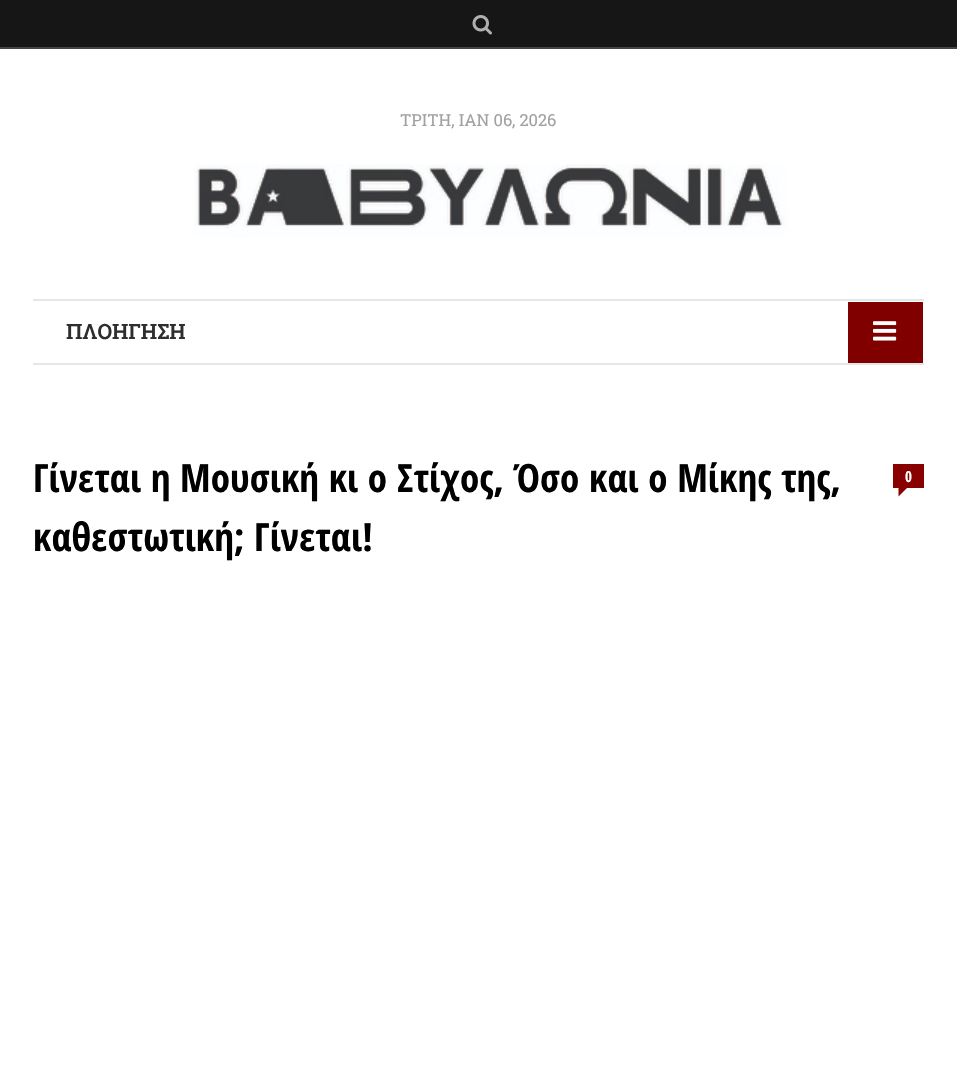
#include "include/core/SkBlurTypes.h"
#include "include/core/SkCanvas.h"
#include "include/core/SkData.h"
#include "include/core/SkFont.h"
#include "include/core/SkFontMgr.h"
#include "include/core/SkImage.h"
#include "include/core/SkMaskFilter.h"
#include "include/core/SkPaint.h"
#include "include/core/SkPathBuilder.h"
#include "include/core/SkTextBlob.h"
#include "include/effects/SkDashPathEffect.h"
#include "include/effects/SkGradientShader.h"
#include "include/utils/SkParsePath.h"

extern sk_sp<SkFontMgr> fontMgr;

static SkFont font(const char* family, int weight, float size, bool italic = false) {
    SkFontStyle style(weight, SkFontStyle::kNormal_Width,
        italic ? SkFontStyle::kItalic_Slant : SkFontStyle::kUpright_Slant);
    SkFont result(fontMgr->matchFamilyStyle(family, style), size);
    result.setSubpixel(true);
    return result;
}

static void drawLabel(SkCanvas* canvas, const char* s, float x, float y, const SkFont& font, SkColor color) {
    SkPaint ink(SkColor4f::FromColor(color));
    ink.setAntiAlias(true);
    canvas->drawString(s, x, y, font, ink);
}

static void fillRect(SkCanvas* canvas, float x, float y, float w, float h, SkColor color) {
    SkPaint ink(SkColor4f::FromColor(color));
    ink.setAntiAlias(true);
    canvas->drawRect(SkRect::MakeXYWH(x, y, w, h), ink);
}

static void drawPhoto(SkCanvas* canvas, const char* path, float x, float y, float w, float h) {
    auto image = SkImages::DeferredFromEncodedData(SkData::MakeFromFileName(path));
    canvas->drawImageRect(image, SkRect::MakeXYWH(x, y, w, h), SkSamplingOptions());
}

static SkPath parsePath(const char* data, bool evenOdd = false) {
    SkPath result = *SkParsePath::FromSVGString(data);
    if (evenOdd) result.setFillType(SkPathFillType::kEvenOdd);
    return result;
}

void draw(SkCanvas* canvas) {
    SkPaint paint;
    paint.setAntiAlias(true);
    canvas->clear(0xFFFFFFFF);
    fillRect(canvas, 0, 0, 957, 47, 0xFF161616);
    fillRect(canvas, 0, 47, 957, 2, 0xFF444444);
    drawPhoto(canvas, "assets/img1.png", 472, 15, 20, 20);
    SkFont font1 = font("Roboto Slab", 400, 16.5f);
    drawLabel(canvas, "ΤΡΙΤΗ, ΙΑΝ 06, 2026", 400, 126, font1, 0xFFA1A1A1);
    drawPhoto(canvas, "assets/img2.png", 194, 164, 594, 73);
    fillRect(canvas, 33, 299, 891, 2, 0xFFE6E6E6);
    fillRect(canvas, 33, 363, 891, 2, 0xFFE6E6E6);
    SkFont font2 = font("Roboto Slab", 600, 21);
    drawLabel(canvas, "ΠΛΟΗΓΗΣΗ", 66, 339, font2, 0xFF2E2E2E);
    fillRect(canvas, 848, 302, 75, 61, 0xFF800000);
    drawPhoto(canvas, "assets/img3.png", 873, 321, 24, 20);
    SkFont font3 = font("Open Sans Condensed", 700, 39);
    drawLabel(canvas, "Γίνεται η Μουσική κι ο Στίχος, Όσο και ο Μίκης της,", 33, 492, font3, 0xFF000000);
    drawLabel(canvas, "καθεστωτική; Γίνεται!", 33, 551, font3, 0xFF000000);
    fillRect(canvas, 893, 464, 31, 24, 0xFF880000);
    SkFont font4 = font("Open Sans Condensed", 700, 15);
    drawLabel(canvas, "0", 905, 482, font4, 0xFFFFFFFF);
    paint.setColor(0xFF880000);
    canvas->drawPath(parsePath("M898.5 496.5V487.5H907.5Z"), paint);
}
